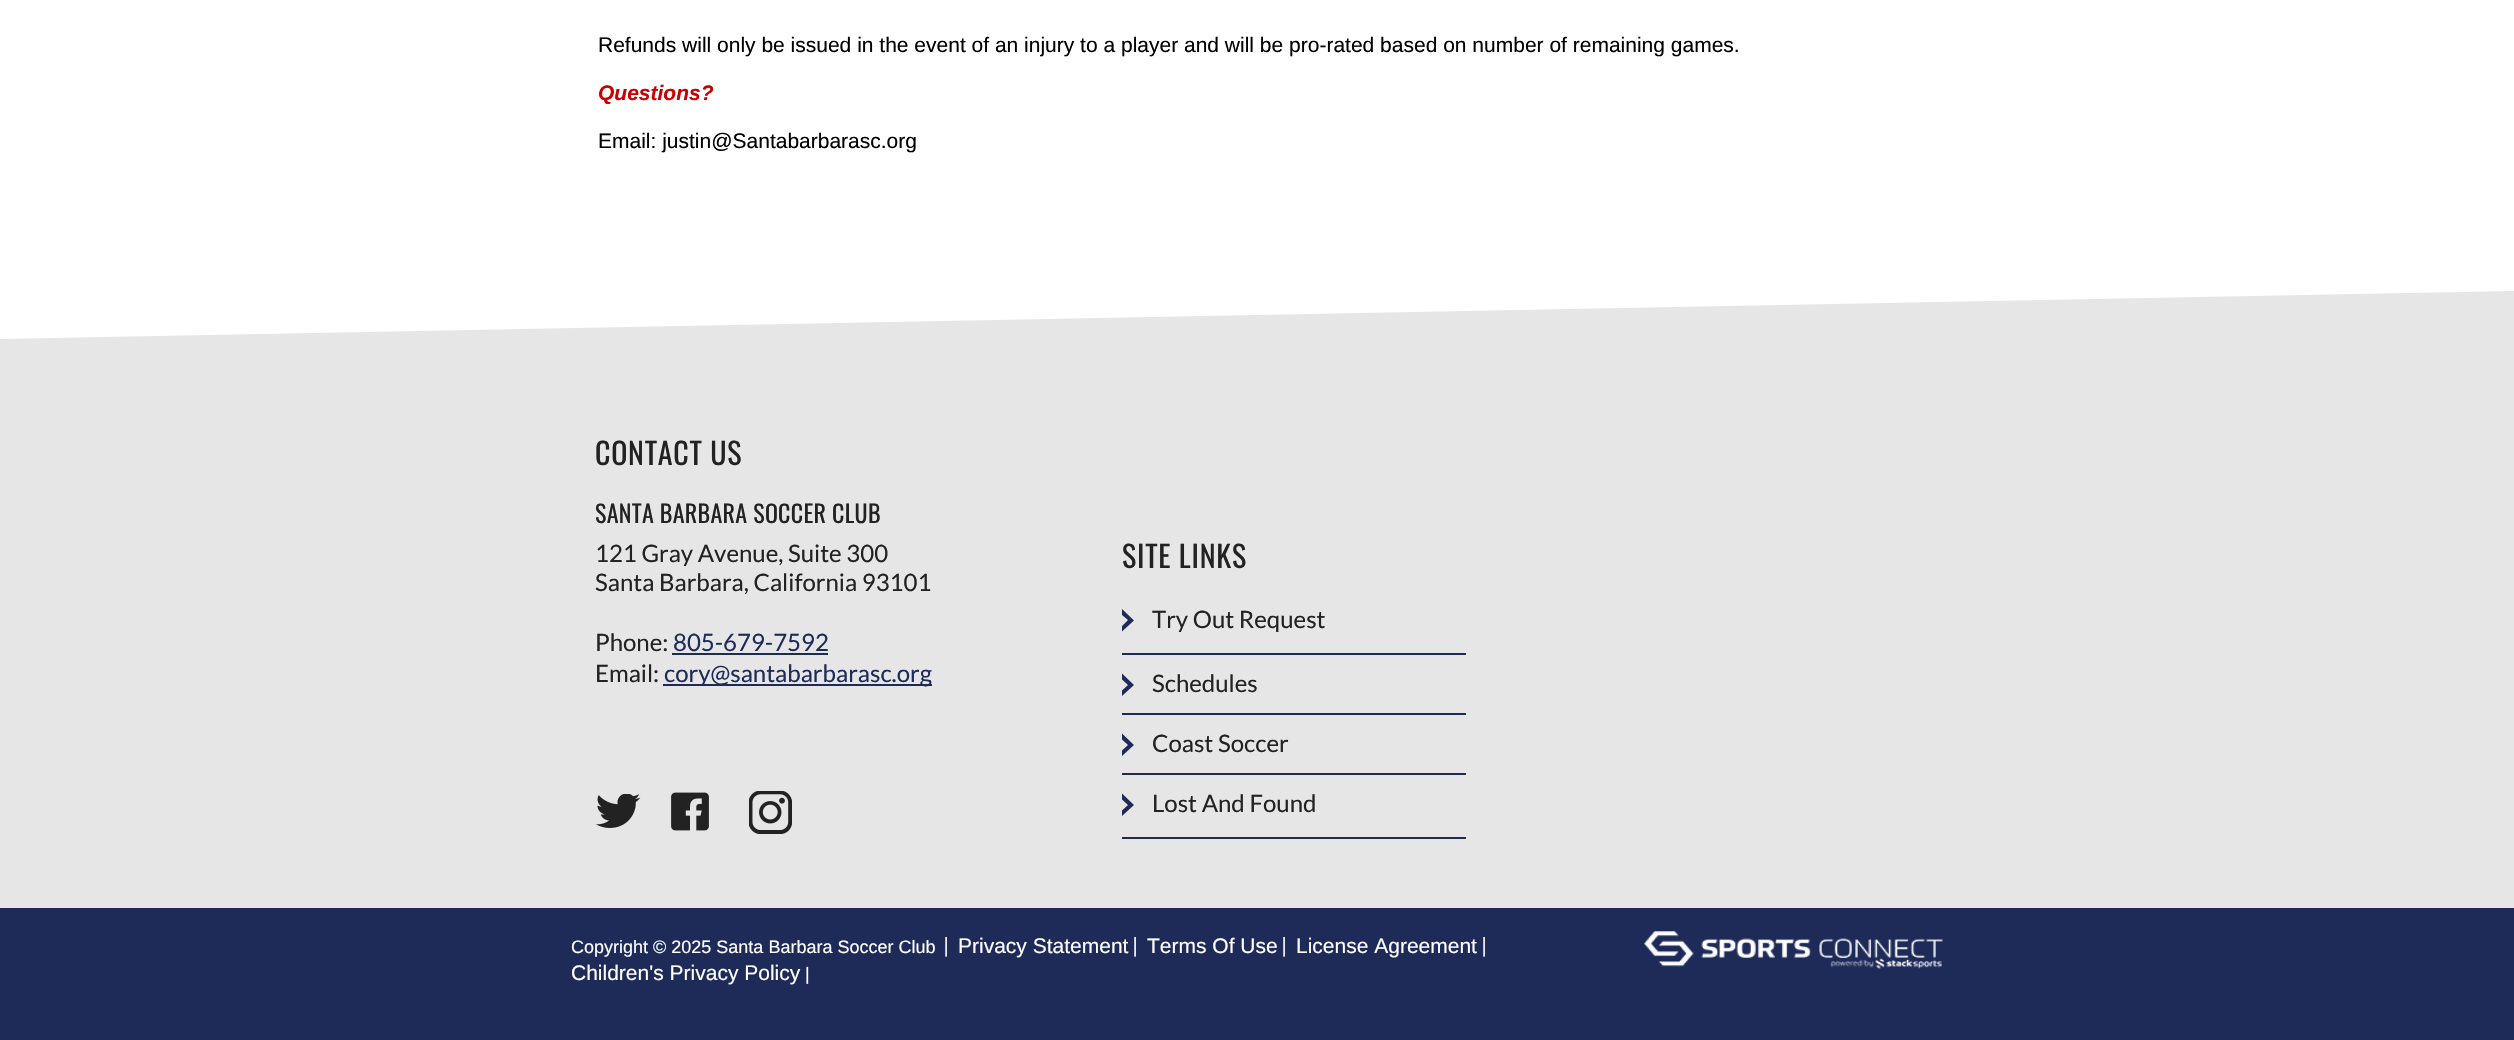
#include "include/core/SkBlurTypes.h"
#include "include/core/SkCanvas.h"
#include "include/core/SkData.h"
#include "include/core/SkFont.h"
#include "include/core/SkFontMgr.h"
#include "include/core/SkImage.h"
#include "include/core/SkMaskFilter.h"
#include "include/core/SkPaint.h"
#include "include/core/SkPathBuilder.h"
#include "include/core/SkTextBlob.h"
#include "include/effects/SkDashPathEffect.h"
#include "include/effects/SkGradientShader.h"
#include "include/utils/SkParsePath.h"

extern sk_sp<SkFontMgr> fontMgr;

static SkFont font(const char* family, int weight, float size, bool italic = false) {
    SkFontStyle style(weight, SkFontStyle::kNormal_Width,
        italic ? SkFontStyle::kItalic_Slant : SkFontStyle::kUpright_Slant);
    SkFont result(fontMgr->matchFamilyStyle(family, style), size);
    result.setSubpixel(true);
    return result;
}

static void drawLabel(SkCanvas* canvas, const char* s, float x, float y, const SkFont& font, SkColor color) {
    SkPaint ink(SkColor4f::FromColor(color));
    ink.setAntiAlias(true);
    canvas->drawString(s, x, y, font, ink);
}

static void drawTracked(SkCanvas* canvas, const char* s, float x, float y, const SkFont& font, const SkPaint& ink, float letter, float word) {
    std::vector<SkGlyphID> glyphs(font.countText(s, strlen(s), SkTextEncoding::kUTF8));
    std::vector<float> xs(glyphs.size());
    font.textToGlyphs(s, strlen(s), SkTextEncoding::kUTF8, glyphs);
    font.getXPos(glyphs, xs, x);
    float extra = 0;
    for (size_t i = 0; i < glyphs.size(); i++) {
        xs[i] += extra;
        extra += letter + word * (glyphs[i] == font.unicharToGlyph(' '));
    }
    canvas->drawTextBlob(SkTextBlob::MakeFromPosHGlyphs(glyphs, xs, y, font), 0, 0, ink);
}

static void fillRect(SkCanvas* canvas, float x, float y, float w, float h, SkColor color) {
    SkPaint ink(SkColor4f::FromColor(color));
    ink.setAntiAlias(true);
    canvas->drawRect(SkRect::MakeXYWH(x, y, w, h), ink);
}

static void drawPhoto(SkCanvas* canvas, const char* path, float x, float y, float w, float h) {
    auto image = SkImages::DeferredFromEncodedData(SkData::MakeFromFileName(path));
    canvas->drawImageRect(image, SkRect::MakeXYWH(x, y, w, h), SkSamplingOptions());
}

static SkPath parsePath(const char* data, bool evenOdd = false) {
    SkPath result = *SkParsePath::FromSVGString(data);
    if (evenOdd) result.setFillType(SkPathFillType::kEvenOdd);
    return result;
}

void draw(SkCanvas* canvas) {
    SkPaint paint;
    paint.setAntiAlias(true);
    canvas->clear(0xFFFFFFFF);
    SkFont font1 = font("Liberation Sans", 400, 21);
    drawLabel(canvas, "Refunds will only be issued in the event of an injury to a player and will be pro-rated based on number of remaining games.", 598, 52, font1, 0xFF000000);
    SkFont font2 = font("Liberation Sans", 700, 21, true);
    drawLabel(canvas, "Questions?", 598, 100, font2, 0xFFCC0000);
    drawLabel(canvas, "Email: justin@Santabarbarasc.org", 598, 148, font1, 0xFF000000);
    paint.setColor(0xFFE6E6E6);
    canvas->drawPath(parsePath("M0 339V908H2514V291Z"), paint);
    SkFont font3 = font("Oswald", 400, 30);
    paint.setColor(0xFF222222);
    drawTracked(canvas, "CONTACT US", 595, 465, font3, paint, 0.75f, 0);
    canvas->save();
    canvas->clipRect(SkRect::MakeXYWH(596, 498, 445, 32));
    SkFont font4 = font("Oswald", 400, 24);
    drawTracked(canvas, "SANTA BARBARA SOCCER CLUB", 595, 523, font4, paint, 0.3f, 0);
    canvas->restore();
    SkFont font5 = font("Lato", 400, 24);
    drawLabel(canvas, "121 Gray Avenue, Suite 300", 595, 562, font5, 0xFF222222);
    drawLabel(canvas, "Santa Barbara, California 93101", 595, 591, font5, 0xFF222222);
    drawLabel(canvas, "Phone:", 595, 651, font5, 0xFF222222);
    drawLabel(canvas, "805-679-7592", 673, 651, font5, 0xFF1E2B59);
    fillRect(canvas, 672, 653, 156, 2, 0xFF1E2B59);
    drawLabel(canvas, "Email:", 595, 682, font5, 0xFF222222);
    fillRect(canvas, 663, 684, 269, 2, 0xFF1E2B59);
    drawLabel(canvas, "cory@santabarbarasc.org", 664, 682, font5, 0xFF1E2B59);
    drawPhoto(canvas, "assets/img1.png", 596, 794, 45, 34);
    drawPhoto(canvas, "assets/img2.png", 671, 792, 38, 39);
    drawPhoto(canvas, "assets/img3.png", 749, 791, 43, 43);
    drawTracked(canvas, "SITE LINKS", 1122, 568, font3, paint, 0.75f, 0);
    fillRect(canvas, 1122, 653, 344, 2, 0xFF1E2B59);
    paint.setColor(0xFF1E2B59);
    canvas->drawPath(parsePath("M1122 609L1134 620.5L1122 631.5V626L1128 620L1122 615Z"), paint);
    drawLabel(canvas, "Try Out Request", 1152, 628, font5, 0xFF222222);
    fillRect(canvas, 1122, 713, 344, 2, 0xFF1E2B59);
    canvas->drawPath(parsePath("M1122 673.5L1134 685L1122 696V690.5L1128 685L1122 679.5Z"), paint);
    drawLabel(canvas, "Schedules", 1152, 692, font5, 0xFF222222);
    fillRect(canvas, 1122, 773, 344, 2, 0xFF1E2B59);
    canvas->drawPath(parsePath("M1122 733.5L1134 745L1122 756V750.5L1128 745L1122 739.5Z"), paint);
    drawLabel(canvas, "Coast Soccer", 1152, 752, font5, 0xFF222222);
    fillRect(canvas, 1122, 837, 344, 2, 0xFF1E2B59);
    canvas->drawPath(parsePath("M1122 793.5L1134 805L1122 816V810.5L1128 805L1122 799.5Z"), paint);
    drawLabel(canvas, "Lost And Found", 1152, 812, font5, 0xFF222222);
    fillRect(canvas, 0, 908, 2514, 132, 0xFF1E2B59);
    SkFont font6 = font("Liberation Sans", 400, 18);
    drawLabel(canvas, "Copyright © 2025 Santa Barbara Soccer Club", 571, 953, font6, 0xFFFFFFFF);
    SkFont font7 = font("Lato", 400, 21);
    drawLabel(canvas, "|", 943, 953, font7, 0xFFFFFFFF);
    drawLabel(canvas, "Privacy Statement", 958, 953, font1, 0xFFFFFFFF);
    drawLabel(canvas, "|", 1132, 953, font7, 0xFFFFFFFF);
    drawLabel(canvas, "Terms Of Use", 1147, 953, font1, 0xFFFFFFFF);
    drawLabel(canvas, "|", 1281, 953, font7, 0xFFFFFFFF);
    drawLabel(canvas, "License Agreement", 1296, 953, font1, 0xFFFFFFFF);
    drawLabel(canvas, "|", 1481, 953, font7, 0xFFFFFFFF);
    drawLabel(canvas, "Children's Privacy Policy", 571, 980, font1, 0xFFFFFFFF);
    drawLabel(canvas, "|", 805, 980, font6, 0xFFFFFFFF);
    drawPhoto(canvas, "assets/img4.png", 1644, 931, 299, 38);
}
